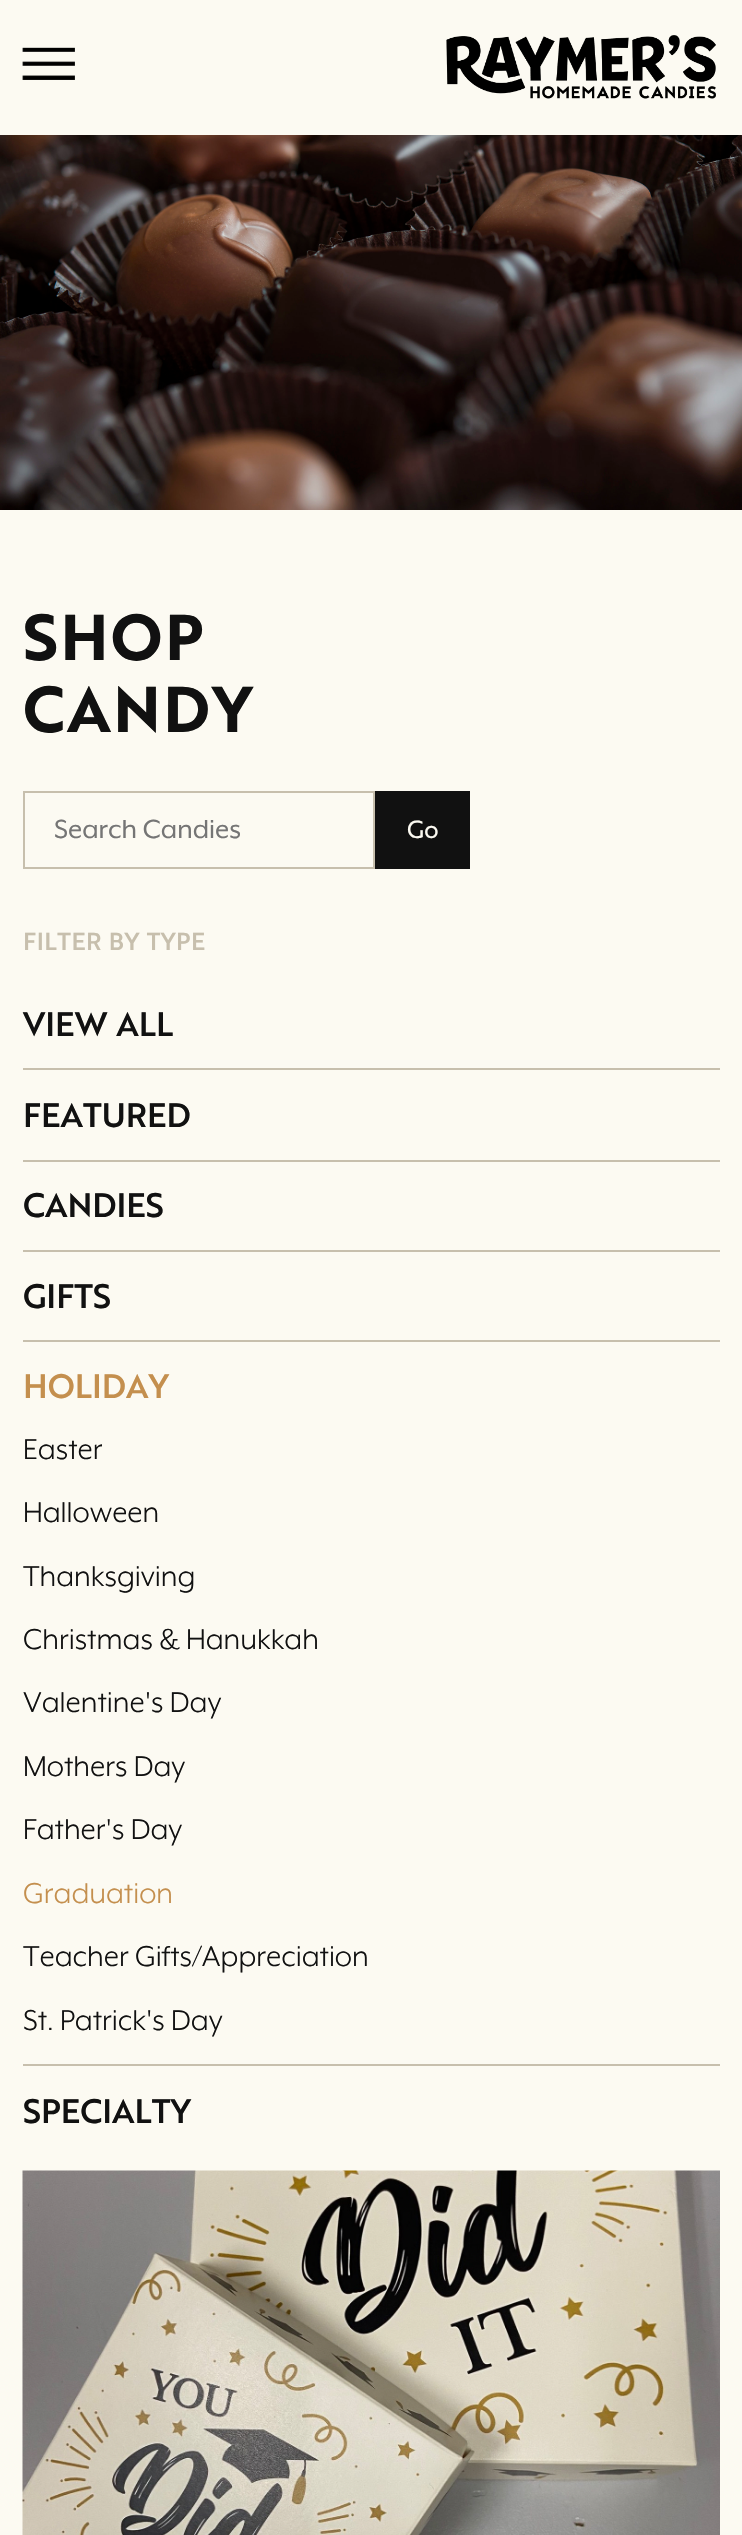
#include "include/core/SkBlurTypes.h"
#include "include/core/SkCanvas.h"
#include "include/core/SkData.h"
#include "include/core/SkFont.h"
#include "include/core/SkFontMgr.h"
#include "include/core/SkImage.h"
#include "include/core/SkMaskFilter.h"
#include "include/core/SkPaint.h"
#include "include/core/SkPathBuilder.h"
#include "include/core/SkTextBlob.h"
#include "include/effects/SkDashPathEffect.h"
#include "include/effects/SkGradientShader.h"
#include "include/utils/SkParsePath.h"

extern sk_sp<SkFontMgr> fontMgr;

static SkFont font(const char* family, int weight, float size, bool italic = false) {
    SkFontStyle style(weight, SkFontStyle::kNormal_Width,
        italic ? SkFontStyle::kItalic_Slant : SkFontStyle::kUpright_Slant);
    SkFont result(fontMgr->matchFamilyStyle(family, style), size);
    result.setSubpixel(true);
    return result;
}

static void drawLabel(SkCanvas* canvas, const char* s, float x, float y, const SkFont& font, SkColor color) {
    SkPaint ink(SkColor4f::FromColor(color));
    ink.setAntiAlias(true);
    canvas->drawString(s, x, y, font, ink);
}

static void drawTracked(SkCanvas* canvas, const char* s, float x, float y, const SkFont& font, const SkPaint& ink, float letter, float word) {
    std::vector<SkGlyphID> glyphs(font.countText(s, strlen(s), SkTextEncoding::kUTF8));
    std::vector<float> xs(glyphs.size());
    font.textToGlyphs(s, strlen(s), SkTextEncoding::kUTF8, glyphs);
    font.getXPos(glyphs, xs, x);
    float extra = 0;
    for (size_t i = 0; i < glyphs.size(); i++) {
        xs[i] += extra;
        extra += letter + word * (glyphs[i] == font.unicharToGlyph(' '));
    }
    canvas->drawTextBlob(SkTextBlob::MakeFromPosHGlyphs(glyphs, xs, y, font), 0, 0, ink);
}

static void fillRect(SkCanvas* canvas, float x, float y, float w, float h, SkColor color) {
    SkPaint ink(SkColor4f::FromColor(color));
    ink.setAntiAlias(true);
    canvas->drawRect(SkRect::MakeXYWH(x, y, w, h), ink);
}

static void drawPhoto(SkCanvas* canvas, const char* path, float x, float y, float w, float h) {
    auto image = SkImages::DeferredFromEncodedData(SkData::MakeFromFileName(path));
    canvas->drawImageRect(image, SkRect::MakeXYWH(x, y, w, h), SkSamplingOptions());
}

void draw(SkCanvas* canvas) {
    SkPaint paint;
    paint.setAntiAlias(true);
    canvas->clear(0xFFFCFAF2);
    drawPhoto(canvas, "assets/img1.png", 22, 47, 53, 33);
    drawPhoto(canvas, "assets/img2.png", 446, 35, 270, 64);
    drawPhoto(canvas, "assets/img3.png", 0, 135, 742, 375);
    SkFont font1 = font("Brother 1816", 700, 63);
    paint.setColor(0xFF111111);
    drawTracked(canvas, "SHOP", 23, 660, font1, paint, 2.5f, 0);
    drawTracked(canvas, "CANDY", 23, 732, font1, paint, 2.5f, 0);
    paint.setStroke(true);
    paint.setStrokeWidth(2);
    paint.setColor(0xFFC7BFAD);
    canvas->drawRect(SkRect::MakeXYWH(24, 792, 350, 76), paint);
    SkFont font2 = font("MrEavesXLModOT", 400, 30);
    drawLabel(canvas, "Search Candies", 54, 838, font2, 0xFF757575);
    fillRect(canvas, 375, 791, 95, 78, 0xFF111111);
    SkFont font3 = font("Brother 1816", 400, 24);
    drawLabel(canvas, "Go", 407, 838, font3, 0xFFFCFAF2);
    SkFont font4 = font("Brother 1816", 500, 24);
    paint.setStroke(false);
    drawTracked(canvas, "FILTER BY TYPE", 23, 950, font4, paint, 0.5f, 0);
    fillRect(canvas, 23, 1068, 697, 2, 0xFFC7BFAD);
    SkFont font5 = font("Brother 1816", 500, 33);
    drawLabel(canvas, "VIEW ALL", 23, 1036, font5, 0xFF111111);
    fillRect(canvas, 23, 1160, 697, 2, 0xFFC7BFAD);
    drawLabel(canvas, "FEATURED", 23, 1127, font5, 0xFF111111);
    fillRect(canvas, 23, 1250, 697, 2, 0xFFC7BFAD);
    drawLabel(canvas, "CANDIES", 23, 1217, font5, 0xFF111111);
    fillRect(canvas, 23, 1340, 697, 2, 0xFFC7BFAD);
    drawLabel(canvas, "GIFTS", 23, 1308, font5, 0xFF111111);
    fillRect(canvas, 23, 2064, 697, 2, 0xFFC7BFAD);
    drawLabel(canvas, "HOLIDAY", 23, 1398, font5, 0xFFC48F4E);
    SkFont font6 = font("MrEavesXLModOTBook", 400, 33);
    drawLabel(canvas, "Easter", 23, 1459, font6, 0xFF111111);
    drawLabel(canvas, "Halloween", 23, 1522, font6, 0xFF111111);
    drawLabel(canvas, "Thanksgiving", 23, 1586, font6, 0xFF111111);
    drawLabel(canvas, "Christmas & Hanukkah", 23, 1649, font6, 0xFF111111);
    drawLabel(canvas, "Valentine's Day", 23, 1712, font6, 0xFF111111);
    drawLabel(canvas, "Mothers Day", 23, 1776, font6, 0xFF111111);
    drawLabel(canvas, "Father's Day", 23, 1839, font6, 0xFF111111);
    drawLabel(canvas, "Graduation", 23, 1903, font6, 0xFFC48F4E);
    drawLabel(canvas, "Teacher Gifts/Appreciation", 23, 1966, font6, 0xFF111111);
    drawLabel(canvas, "St. Patrick's Day", 23, 2030, font6, 0xFF111111);
    drawLabel(canvas, "SPECIALTY", 23, 2123, font5, 0xFF111111);
    drawPhoto(canvas, "assets/img4.png", 22, 2170, 698, 365);
}
